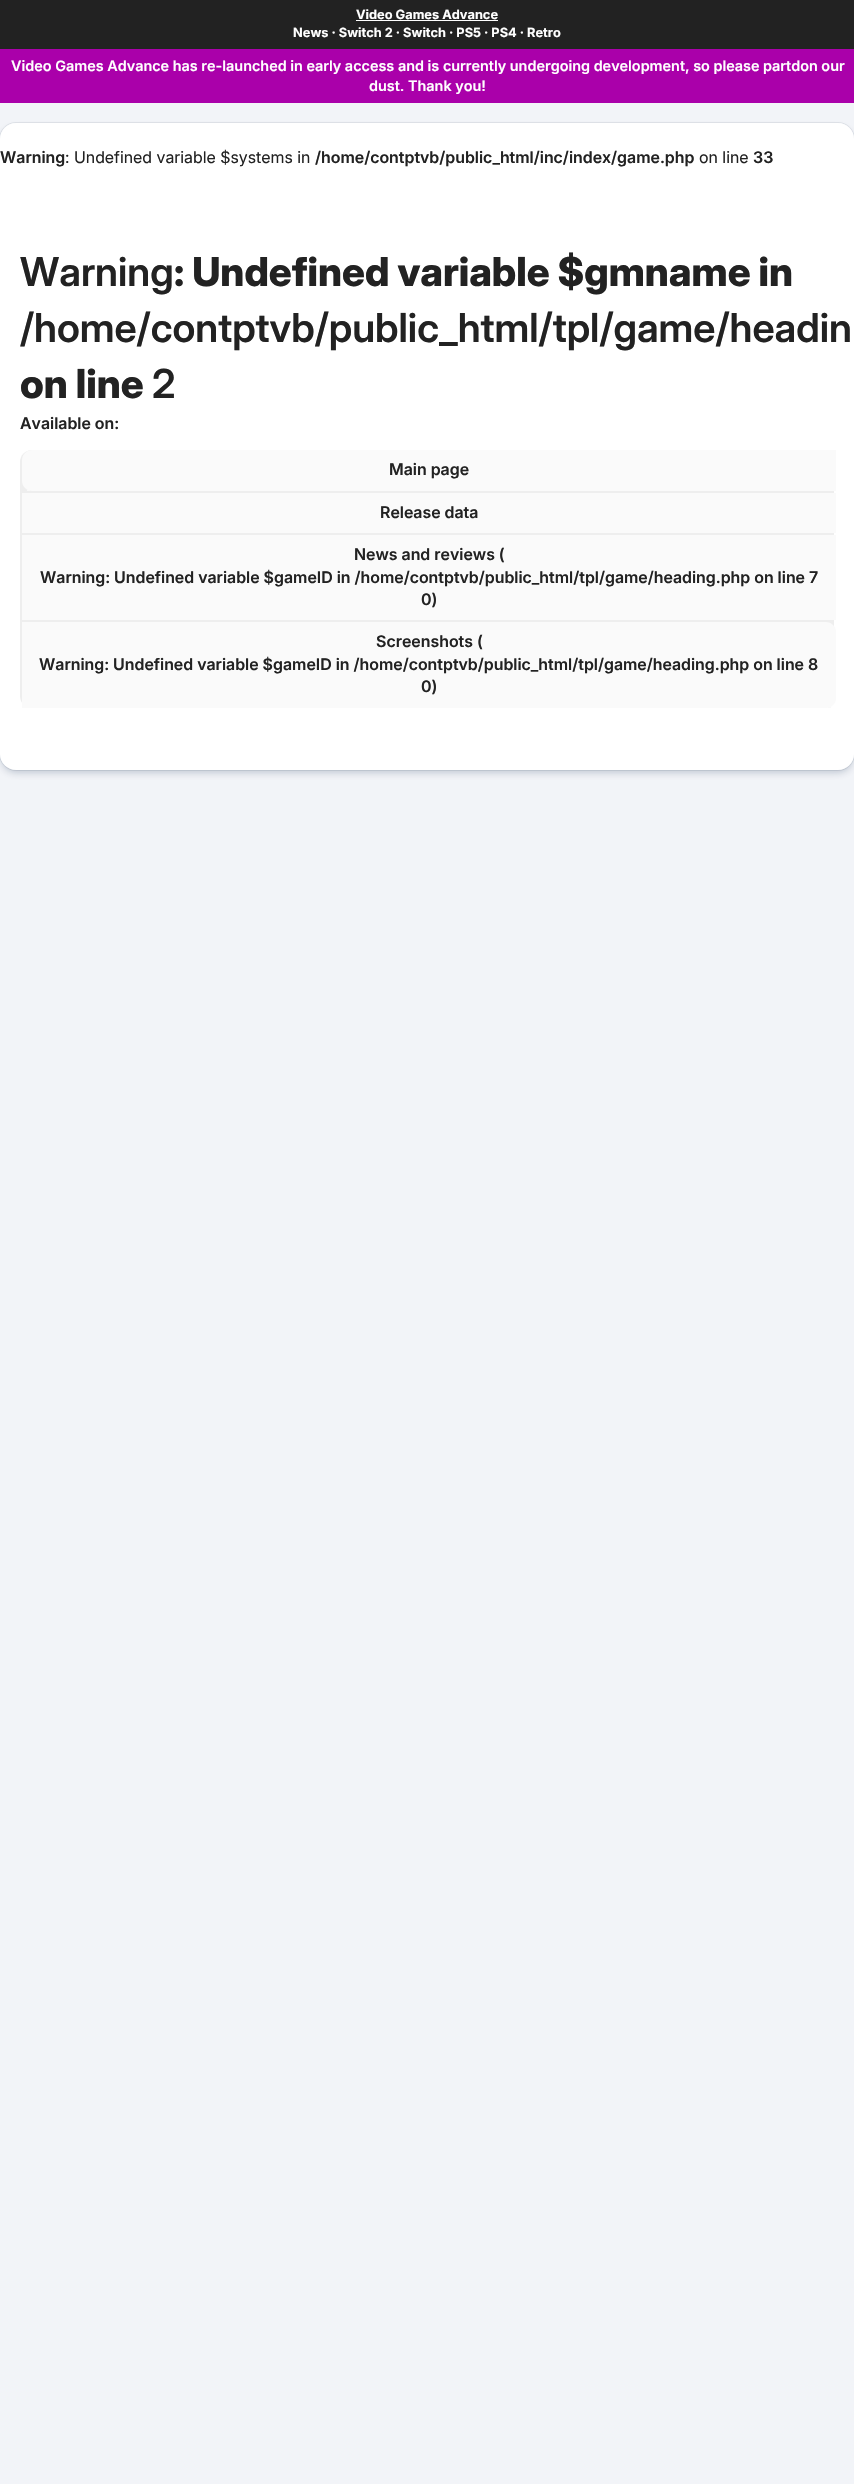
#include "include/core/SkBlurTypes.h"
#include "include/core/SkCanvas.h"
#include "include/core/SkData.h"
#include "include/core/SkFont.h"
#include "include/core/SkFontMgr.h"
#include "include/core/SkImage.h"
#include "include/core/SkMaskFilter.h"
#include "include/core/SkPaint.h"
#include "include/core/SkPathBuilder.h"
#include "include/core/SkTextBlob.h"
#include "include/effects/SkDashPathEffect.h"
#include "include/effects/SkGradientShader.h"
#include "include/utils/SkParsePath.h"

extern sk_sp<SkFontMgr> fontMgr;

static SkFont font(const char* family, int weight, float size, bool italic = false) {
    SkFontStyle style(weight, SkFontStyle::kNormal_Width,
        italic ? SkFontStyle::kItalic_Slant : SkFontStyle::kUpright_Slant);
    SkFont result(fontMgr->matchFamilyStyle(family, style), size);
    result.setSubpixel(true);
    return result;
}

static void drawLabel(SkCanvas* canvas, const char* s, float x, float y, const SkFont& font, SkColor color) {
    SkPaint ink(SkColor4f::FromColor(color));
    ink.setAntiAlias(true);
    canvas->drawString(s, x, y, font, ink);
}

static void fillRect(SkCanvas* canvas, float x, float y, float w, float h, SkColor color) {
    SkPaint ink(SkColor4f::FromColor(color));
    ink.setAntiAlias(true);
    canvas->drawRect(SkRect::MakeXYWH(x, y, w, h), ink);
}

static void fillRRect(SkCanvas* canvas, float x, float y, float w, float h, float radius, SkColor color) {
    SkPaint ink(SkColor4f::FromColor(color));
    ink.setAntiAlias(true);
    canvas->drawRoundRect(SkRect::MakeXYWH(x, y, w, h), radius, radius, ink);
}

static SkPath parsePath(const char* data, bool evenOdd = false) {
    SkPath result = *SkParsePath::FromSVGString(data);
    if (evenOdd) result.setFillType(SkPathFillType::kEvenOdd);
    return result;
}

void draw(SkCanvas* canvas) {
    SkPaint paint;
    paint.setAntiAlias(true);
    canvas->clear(0xFFF2F4F8);
    fillRect(canvas, 0, 0, 854, 49, 0xFF222222);
    SkFont font1 = font("Inter", 700, 12.8f);
    drawLabel(canvas, "Video Games Advance", 356, 19, font1, 0xFFFFFFFF);
    fillRect(canvas, 356, 20, 142, 1, 0xFFFFFFFF);
    drawLabel(canvas, "News · Switch 2 · Switch · PS5 · PS4 · Retro", 293, 37, font1, 0xFFFFFFFF);
    fillRect(canvas, 0, 49, 854, 54, 0xFFAA00AA);
    SkFont font2 = font("Inter", 600, 14.4f);
    drawLabel(canvas, "Video Games Advance has re-launched in early access and is currently undergoing development, so please partdon our", 11, 71, font2, 0xFFFFFFFF);
    drawLabel(canvas, "dust. Thank you!", 369, 91, font2, 0xFFFFFFFF);
    paint.setStroke(true);
    paint.setStrokeWidth(1);
    paint.setColor(0xFFDFE3E9);
    canvas->drawRoundRect(SkRect::MakeXYWH(-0.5f, 122.5f, 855, 648), 16.5f, 16.5f, paint);
    paint.setStroke(false);
    paint.setColor(0x40091E42);
    paint.setMaskFilter(SkMaskFilter::MakeBlur(kNormal_SkBlurStyle, 4));
    canvas->drawRoundRect(SkRect::MakeXYWH(2, 129, 850, 643), 14, 14, paint);
    paint.setMaskFilter(nullptr);
    fillRRect(canvas, 0, 123, 854, 647, 16, 0xFFFFFFFF);
    SkFont font3 = font("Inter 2", 600, 16);
    drawLabel(canvas, "Warning", 0, 163, font3, 0xFF222222);
    SkFont font4 = font("Inter", 400, 16);
    drawLabel(canvas, ": Undefined variable $systems in", 65, 163, font4, 0xFF222222);
    drawLabel(canvas, "/home/contptvb/public_html/inc/index/game.php", 315, 163, font3, 0xFF222222);
    drawLabel(canvas, "on line", 699, 163, font4, 0xFF222222);
    drawLabel(canvas, "33", 753, 163, font3, 0xFF222222);
    SkFont font5 = font("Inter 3", 600, 40);
    drawLabel(canvas, "Warning", 20, 286, font5, 0xFF222222);
    SkFont font6 = font("Inter", 800, 40);
    drawLabel(canvas, ": Undefined variable $gmname in", 174, 286, font6, 0xFF222222);
    drawLabel(canvas, "/home/contptvb/public_html/tpl/game/headin", 20, 342, font5, 0xFF222222);
    drawLabel(canvas, "on line", 20, 398, font6, 0xFF222222);
    drawLabel(canvas, "2", 152, 398, font5, 0xFF222222);
    drawLabel(canvas, "Available on:", 20, 429, font3, 0xFF222222);
    fillRRect(canvas, 20, 450, 814, 258, 12, 0xFFEEEEEE);
    paint.setColor(0xFFFAFAFA);
    canvas->drawPath(parsePath("M32 450H836V491H32C26.5 491 22 486.5 22 481V460C22 454.5 26.5 450 32 450Z"), paint);
    fillRect(canvas, 27, 490, 3, 1, 0xFFF9F9F9);
    drawLabel(canvas, "Main page", 389, 475, font3, 0xFF222222);
    fillRect(canvas, 22, 493, 814, 40, 0xFFFAFAFA);
    drawLabel(canvas, "Release data", 380, 518, font3, 0xFF222222);
    fillRect(canvas, 22, 535, 814, 85, 0xFFFAFAFA);
    drawLabel(canvas, "News and reviews (", 354, 560, font3, 0xFF222222);
    drawLabel(canvas, "Warning: Undefined variable $gameID in /home/contptvb/public_html/tpl/game/heading.php on line 7", 40, 583, font3, 0xFF222222);
    drawLabel(canvas, "0)", 421, 605, font3, 0xFF222222);
    canvas->drawPath(parsePath("M22 622H826C831.5 622 836 626.5 836 632V698C836 703.5 831.5 708 826 708H22Z"), paint);
    fillRect(canvas, 828, 707, 3, 1, 0xFFF9F9F9);
    drawLabel(canvas, "Screenshots (", 376, 647, font3, 0xFF222222);
    drawLabel(canvas, "Warning: Undefined variable $gameID in /home/contptvb/public_html/tpl/game/heading.php on line 8", 39, 670, font3, 0xFF222222);
    drawLabel(canvas, "0)", 421, 692, font3, 0xFF222222);
}
